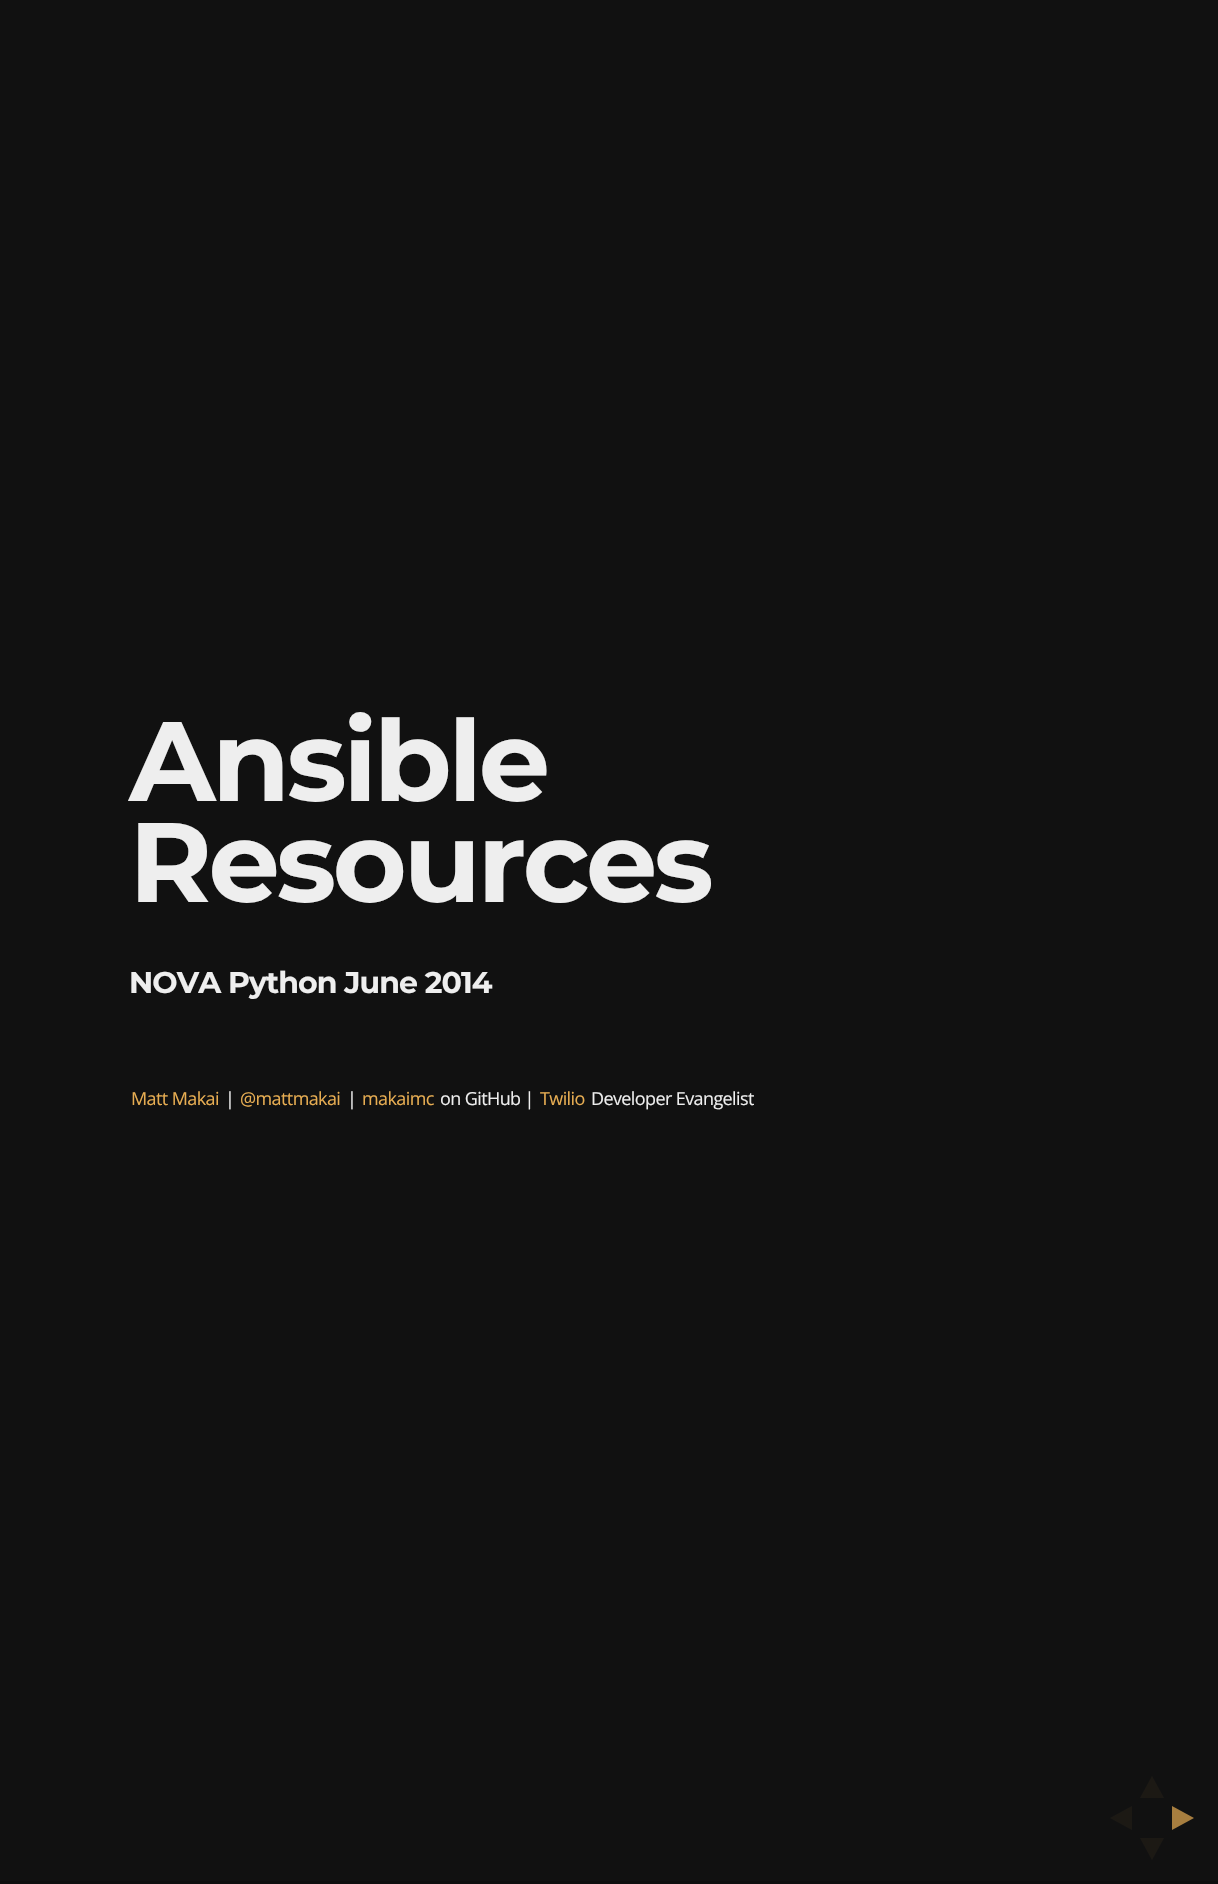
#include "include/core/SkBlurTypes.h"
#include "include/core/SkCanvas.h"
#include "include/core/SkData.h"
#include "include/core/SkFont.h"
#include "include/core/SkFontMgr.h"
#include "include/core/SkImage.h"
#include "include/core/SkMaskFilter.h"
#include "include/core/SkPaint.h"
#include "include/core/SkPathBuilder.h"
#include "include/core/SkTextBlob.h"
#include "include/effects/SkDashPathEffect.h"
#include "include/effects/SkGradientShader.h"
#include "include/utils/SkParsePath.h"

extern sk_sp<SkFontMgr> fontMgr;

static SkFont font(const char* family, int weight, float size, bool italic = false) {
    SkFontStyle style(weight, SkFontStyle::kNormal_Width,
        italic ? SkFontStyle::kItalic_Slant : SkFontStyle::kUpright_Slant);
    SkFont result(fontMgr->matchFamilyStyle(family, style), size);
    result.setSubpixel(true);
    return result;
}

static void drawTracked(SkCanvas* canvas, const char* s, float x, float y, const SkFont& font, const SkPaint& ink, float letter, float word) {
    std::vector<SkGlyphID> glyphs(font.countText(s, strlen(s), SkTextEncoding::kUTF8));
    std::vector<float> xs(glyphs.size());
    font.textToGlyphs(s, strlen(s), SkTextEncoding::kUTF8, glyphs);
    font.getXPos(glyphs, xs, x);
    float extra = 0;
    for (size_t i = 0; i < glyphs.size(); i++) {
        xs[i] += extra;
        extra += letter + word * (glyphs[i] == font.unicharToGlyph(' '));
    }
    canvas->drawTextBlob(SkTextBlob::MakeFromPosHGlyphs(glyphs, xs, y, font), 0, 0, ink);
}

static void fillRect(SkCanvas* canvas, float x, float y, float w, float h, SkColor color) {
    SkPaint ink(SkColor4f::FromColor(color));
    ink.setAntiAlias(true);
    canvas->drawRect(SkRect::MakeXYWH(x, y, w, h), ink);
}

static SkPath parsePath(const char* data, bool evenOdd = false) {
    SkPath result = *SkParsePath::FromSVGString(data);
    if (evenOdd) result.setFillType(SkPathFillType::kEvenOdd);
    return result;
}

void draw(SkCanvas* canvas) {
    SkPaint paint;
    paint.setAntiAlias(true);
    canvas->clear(0xFF111111);
    SkFont font1 = font("Montserrat", 100, 113);
    paint.setColor(0xFFEEEEEE);
    drawTracked(canvas, "Ansible", 129, 801, font1, paint, -3.5f, 0);
    drawTracked(canvas, "Resources", 129, 902, font1, paint, -3.5f, 0);
    SkFont font2 = font("Montserrat", 100, 30);
    drawTracked(canvas, "NOVA Python June 2014", 129, 993, font2, paint, -0.9f, 0);
    SkFont font3 = font("Open Sans", 400, 18);
    paint.setColor(0xFFE7AD52);
    drawTracked(canvas, "Matt Makai", 131, 1105, font3, paint, -0.6f, 0);
    paint.setColor(0xFFEEEEEE);
    drawTracked(canvas, "|", 225, 1105, font3, paint, -0.6f, 0);
    paint.setColor(0xFFE7AD52);
    drawTracked(canvas, "@mattmakai", 240, 1105, font3, paint, -0.6f, 0);
    paint.setColor(0xFFEEEEEE);
    drawTracked(canvas, "|", 347, 1105, font3, paint, -0.6f, 0);
    paint.setColor(0xFFE7AD52);
    drawTracked(canvas, "makaimc", 362, 1105, font3, paint, -0.6f, 0);
    paint.setColor(0xFFEEEEEE);
    drawTracked(canvas, "on GitHub |", 440, 1105, font3, paint, -0.6f, 0);
    paint.setColor(0xFFE7AD52);
    drawTracked(canvas, "Twilio", 540, 1105, font3, paint, -0.6f, 0);
    paint.setColor(0xFFEEEEEE);
    drawTracked(canvas, "Developer Evangelist", 591, 1105, font3, paint, -0.6f, 0);
    paint.setColor(0xFF1C1914);
    canvas->drawPath(parsePath("M1164 1798H1140L1152 1776Z"), paint);
    canvas->drawPath(parsePath("M1132 1806V1830L1110 1818Z"), paint);
    paint.setColor(0xFFA77E3F);
    canvas->drawPath(parsePath("M1172 1830V1806L1194 1818Z"), paint);
    paint.setColor(0xFF1C1914);
    canvas->drawPath(parsePath("M1140 1838H1164L1152 1860Z"), paint);
    fillRect(canvas, 0, 1881, 1218, 3, 0xFF0E0E0E);
}
